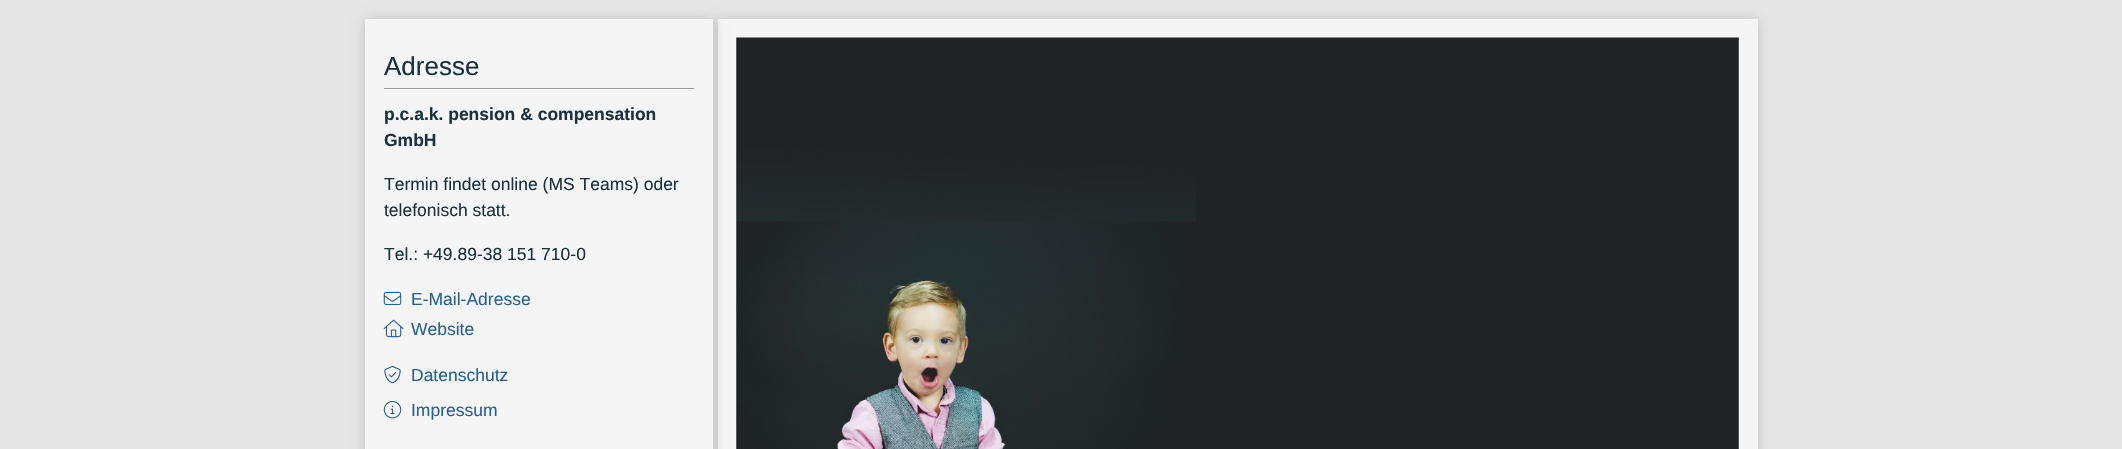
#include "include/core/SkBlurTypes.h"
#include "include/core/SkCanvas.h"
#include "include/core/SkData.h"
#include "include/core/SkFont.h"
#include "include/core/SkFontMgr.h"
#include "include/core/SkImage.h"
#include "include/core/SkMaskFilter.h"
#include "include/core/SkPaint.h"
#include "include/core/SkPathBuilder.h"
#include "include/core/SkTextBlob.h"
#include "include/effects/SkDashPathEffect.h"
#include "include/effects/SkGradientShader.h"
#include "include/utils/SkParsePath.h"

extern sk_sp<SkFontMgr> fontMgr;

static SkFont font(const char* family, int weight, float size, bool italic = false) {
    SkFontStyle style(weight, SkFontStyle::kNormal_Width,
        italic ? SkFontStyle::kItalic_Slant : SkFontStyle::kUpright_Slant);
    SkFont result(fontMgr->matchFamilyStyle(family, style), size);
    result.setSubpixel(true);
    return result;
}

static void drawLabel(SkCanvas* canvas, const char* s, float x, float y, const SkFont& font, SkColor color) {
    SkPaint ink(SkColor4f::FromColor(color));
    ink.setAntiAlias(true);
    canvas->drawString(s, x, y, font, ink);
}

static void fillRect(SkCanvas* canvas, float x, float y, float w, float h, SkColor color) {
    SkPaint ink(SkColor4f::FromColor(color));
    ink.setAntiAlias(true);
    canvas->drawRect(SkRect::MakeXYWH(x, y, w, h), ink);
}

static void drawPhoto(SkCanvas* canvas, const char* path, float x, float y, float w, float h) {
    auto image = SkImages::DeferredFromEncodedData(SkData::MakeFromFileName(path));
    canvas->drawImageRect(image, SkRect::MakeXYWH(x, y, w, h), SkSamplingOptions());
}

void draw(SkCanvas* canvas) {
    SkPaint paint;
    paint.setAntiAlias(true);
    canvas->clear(0xFFE6E6E6);
    paint.setColor(0xFFBFBFBF);
    paint.setMaskFilter(SkMaskFilter::MakeBlur(kNormal_SkBlurStyle, 6));
    canvas->drawRect(SkRect::MakeXYWH(718, 20, 1040, 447), paint);
    paint.setMaskFilter(nullptr);
    fillRect(canvas, 718, 19, 1040, 430, 0xFFF5F5F5);
    paint.setMaskFilter(SkMaskFilter::MakeBlur(kNormal_SkBlurStyle, 6));
    canvas->drawRect(SkRect::MakeXYWH(365, 20, 348, 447), paint);
    paint.setMaskFilter(nullptr);
    fillRect(canvas, 365, 19, 348, 430, 0xFFF5F5F5);
    fillRect(canvas, 384, 88, 310, 1, 0xFF999999);
    SkFont font1 = font("Liberation Sans", 400, 26);
    drawLabel(canvas, "Adresse", 384, 75, font1, 0xFF1A3141);
    SkFont font2 = font("Liberation Sans", 700, 17.5f);
    drawLabel(canvas, "p.c.a.k. pension & compensation", 384, 120, font2, 0xFF1A3141);
    drawLabel(canvas, "GmbH", 384, 146, font2, 0xFF1A3141);
    SkFont font3 = font("Liberation Sans", 400, 17.5f);
    drawLabel(canvas, "Termin findet online (MS Teams) oder", 384, 190, font3, 0xFF1A3141);
    drawLabel(canvas, "telefonisch statt.", 384, 216, font3, 0xFF1A3141);
    drawLabel(canvas, "Tel.: +49.89-38 151 710-0", 384, 260, font3, 0xFF1A3141);
    drawPhoto(canvas, "assets/img1.png", 383, 291, 19, 14);
    drawLabel(canvas, "E-Mail-Adresse", 411, 305, font3, 0xFF26619B);
    drawPhoto(canvas, "assets/img2.png", 383, 319, 21, 19);
    drawLabel(canvas, "Website", 411, 335, font3, 0xFF26619B);
    drawPhoto(canvas, "assets/img3.png", 384, 366, 17, 18);
    drawLabel(canvas, "Datenschutz", 411, 381, font3, 0xFF26619B);
    drawPhoto(canvas, "assets/img4.png", 383, 400, 19, 19);
    drawLabel(canvas, "Impressum", 411, 416, font3, 0xFF26619B);
    drawPhoto(canvas, "assets/img5.png", 736, 37, 1003, 412);
}
